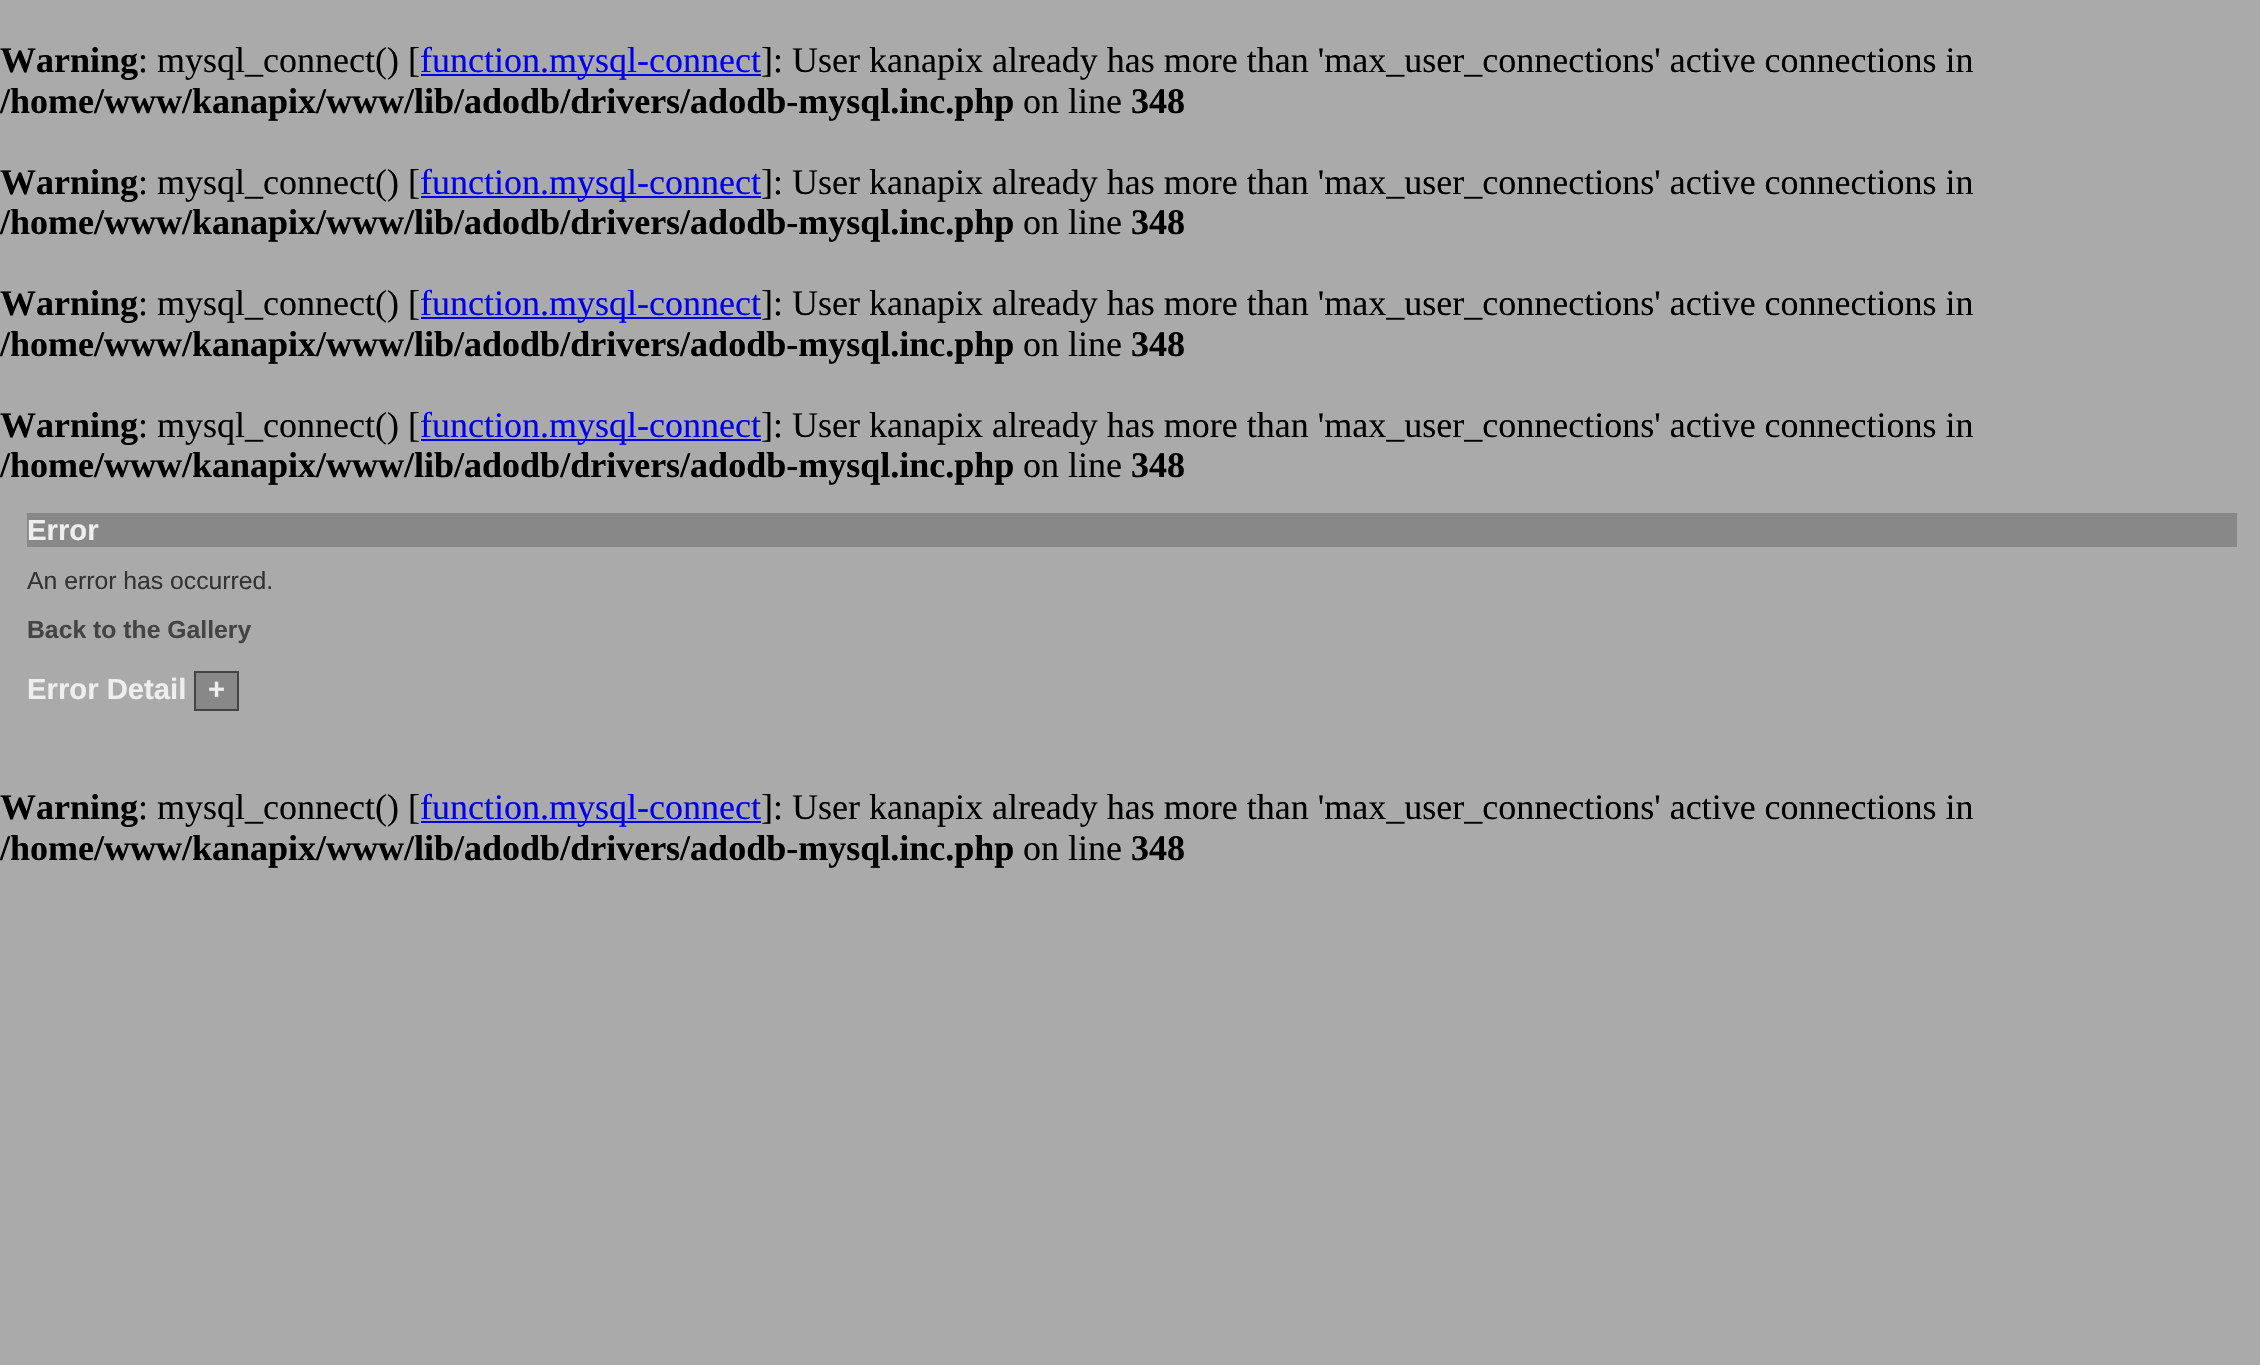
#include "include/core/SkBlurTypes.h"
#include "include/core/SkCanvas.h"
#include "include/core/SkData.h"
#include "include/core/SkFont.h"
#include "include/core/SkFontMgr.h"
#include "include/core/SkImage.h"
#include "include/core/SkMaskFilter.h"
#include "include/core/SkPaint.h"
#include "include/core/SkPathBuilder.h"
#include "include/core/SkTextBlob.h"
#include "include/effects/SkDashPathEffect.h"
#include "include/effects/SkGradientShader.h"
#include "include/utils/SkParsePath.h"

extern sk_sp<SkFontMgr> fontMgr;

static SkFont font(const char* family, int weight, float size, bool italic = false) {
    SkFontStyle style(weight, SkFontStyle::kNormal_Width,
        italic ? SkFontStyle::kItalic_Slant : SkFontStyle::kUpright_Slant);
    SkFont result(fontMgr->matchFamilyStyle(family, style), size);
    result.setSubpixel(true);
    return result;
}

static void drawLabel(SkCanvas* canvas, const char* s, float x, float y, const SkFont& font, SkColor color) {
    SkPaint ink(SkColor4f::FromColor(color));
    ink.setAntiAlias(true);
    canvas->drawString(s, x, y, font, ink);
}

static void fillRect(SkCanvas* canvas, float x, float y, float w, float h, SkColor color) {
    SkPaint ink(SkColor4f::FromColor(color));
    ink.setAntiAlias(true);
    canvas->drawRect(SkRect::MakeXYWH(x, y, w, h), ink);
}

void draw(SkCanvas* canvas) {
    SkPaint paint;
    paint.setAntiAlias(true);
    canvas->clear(0xFFAAAAAA);
    SkFont font1 = font("Liberation Serif", 700, 36);
    drawLabel(canvas, "Warning", 0, 72, font1, 0xFF000000);
    SkFont font2 = font("Liberation Serif", 400, 36);
    drawLabel(canvas, ": mysql_connect() [", 138, 72, font2, 0xFF000000);
    fillRect(canvas, 421, 74, 340, 2, 0xFF0000EE);
    drawLabel(canvas, "function.mysql-connect", 420, 72, font2, 0xFF0000EE);
    drawLabel(canvas, "]: User kanapix already has more than 'max_user_connections' active connections in", 761, 72, font2, 0xFF000000);
    drawLabel(canvas, "/home/www/kanapix/www/lib/adodb/drivers/adodb-mysql.inc.php", 0, 113, font1, 0xFF000000);
    drawLabel(canvas, "on line", 1023, 113, font2, 0xFF000000);
    drawLabel(canvas, "348", 1131, 113, font1, 0xFF000000);
    drawLabel(canvas, "Warning", 0, 194, font1, 0xFF000000);
    drawLabel(canvas, ": mysql_connect() [", 138, 194, font2, 0xFF000000);
    fillRect(canvas, 421, 196, 340, 2, 0xFF0000EE);
    drawLabel(canvas, "function.mysql-connect", 420, 194, font2, 0xFF0000EE);
    drawLabel(canvas, "]: User kanapix already has more than 'max_user_connections' active connections in", 761, 194, font2, 0xFF000000);
    drawLabel(canvas, "/home/www/kanapix/www/lib/adodb/drivers/adodb-mysql.inc.php", 0, 234, font1, 0xFF000000);
    drawLabel(canvas, "on line", 1023, 234, font2, 0xFF000000);
    drawLabel(canvas, "348", 1131, 234, font1, 0xFF000000);
    drawLabel(canvas, "Warning", 0, 315, font1, 0xFF000000);
    drawLabel(canvas, ": mysql_connect() [", 138, 315, font2, 0xFF000000);
    fillRect(canvas, 421, 317, 340, 2, 0xFF0000EE);
    drawLabel(canvas, "function.mysql-connect", 420, 315, font2, 0xFF0000EE);
    drawLabel(canvas, "]: User kanapix already has more than 'max_user_connections' active connections in", 761, 315, font2, 0xFF000000);
    drawLabel(canvas, "/home/www/kanapix/www/lib/adodb/drivers/adodb-mysql.inc.php", 0, 356, font1, 0xFF000000);
    drawLabel(canvas, "on line", 1023, 356, font2, 0xFF000000);
    drawLabel(canvas, "348", 1131, 356, font1, 0xFF000000);
    drawLabel(canvas, "Warning", 0, 437, font1, 0xFF000000);
    drawLabel(canvas, ": mysql_connect() [", 138, 437, font2, 0xFF000000);
    fillRect(canvas, 421, 439, 340, 2, 0xFF0000EE);
    drawLabel(canvas, "function.mysql-connect", 420, 437, font2, 0xFF0000EE);
    drawLabel(canvas, "]: User kanapix already has more than 'max_user_connections' active connections in", 761, 437, font2, 0xFF000000);
    drawLabel(canvas, "/home/www/kanapix/www/lib/adodb/drivers/adodb-mysql.inc.php", 0, 477, font1, 0xFF000000);
    drawLabel(canvas, "on line", 1023, 477, font2, 0xFF000000);
    drawLabel(canvas, "348", 1131, 477, font1, 0xFF000000);
    fillRect(canvas, 27, 513, 2210, 34, 0xFF888888);
    SkFont font3 = font("Liberation Sans", 700, 29.25f);
    drawLabel(canvas, "Error", 27, 540, font3, 0xFFEEEEEE);
    SkFont font4 = font("Liberation Sans", 400, 24.75f);
    drawLabel(canvas, "An error has occurred.", 27, 589, font4, 0xFF333333);
    SkFont font5 = font("Liberation Sans", 700, 24.75f);
    drawLabel(canvas, "Back to the Gallery", 27, 638, font5, 0xFF444444);
    drawLabel(canvas, "Error Detail", 27, 699, font3, 0xFFEEEEEE);
    paint.setColor(0xFF888888);
    canvas->drawRect(SkRect::MakeXYWH(195, 672, 43, 38), paint);
    paint.setStroke(true);
    paint.setStrokeWidth(2);
    paint.setColor(0xFF444444);
    canvas->drawRect(SkRect::MakeXYWH(195, 672, 43, 38), paint);
    drawLabel(canvas, "+", 208, 699, font3, 0xFFEEEEEE);
    drawLabel(canvas, "Warning", 0, 819, font1, 0xFF000000);
    drawLabel(canvas, ": mysql_connect() [", 138, 819, font2, 0xFF000000);
    fillRect(canvas, 421, 821, 340, 2, 0xFF0000EE);
    drawLabel(canvas, "function.mysql-connect", 420, 819, font2, 0xFF0000EE);
    drawLabel(canvas, "]: User kanapix already has more than 'max_user_connections' active connections in", 761, 819, font2, 0xFF000000);
    drawLabel(canvas, "/home/www/kanapix/www/lib/adodb/drivers/adodb-mysql.inc.php", 0, 860, font1, 0xFF000000);
    drawLabel(canvas, "on line", 1023, 860, font2, 0xFF000000);
    drawLabel(canvas, "348", 1131, 860, font1, 0xFF000000);
}
